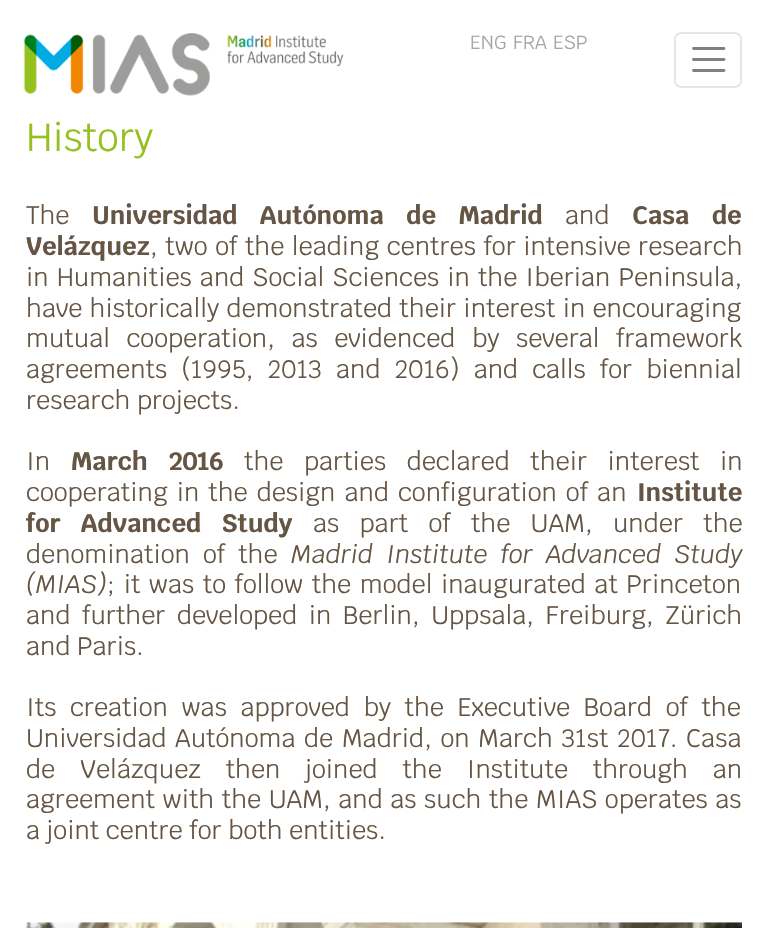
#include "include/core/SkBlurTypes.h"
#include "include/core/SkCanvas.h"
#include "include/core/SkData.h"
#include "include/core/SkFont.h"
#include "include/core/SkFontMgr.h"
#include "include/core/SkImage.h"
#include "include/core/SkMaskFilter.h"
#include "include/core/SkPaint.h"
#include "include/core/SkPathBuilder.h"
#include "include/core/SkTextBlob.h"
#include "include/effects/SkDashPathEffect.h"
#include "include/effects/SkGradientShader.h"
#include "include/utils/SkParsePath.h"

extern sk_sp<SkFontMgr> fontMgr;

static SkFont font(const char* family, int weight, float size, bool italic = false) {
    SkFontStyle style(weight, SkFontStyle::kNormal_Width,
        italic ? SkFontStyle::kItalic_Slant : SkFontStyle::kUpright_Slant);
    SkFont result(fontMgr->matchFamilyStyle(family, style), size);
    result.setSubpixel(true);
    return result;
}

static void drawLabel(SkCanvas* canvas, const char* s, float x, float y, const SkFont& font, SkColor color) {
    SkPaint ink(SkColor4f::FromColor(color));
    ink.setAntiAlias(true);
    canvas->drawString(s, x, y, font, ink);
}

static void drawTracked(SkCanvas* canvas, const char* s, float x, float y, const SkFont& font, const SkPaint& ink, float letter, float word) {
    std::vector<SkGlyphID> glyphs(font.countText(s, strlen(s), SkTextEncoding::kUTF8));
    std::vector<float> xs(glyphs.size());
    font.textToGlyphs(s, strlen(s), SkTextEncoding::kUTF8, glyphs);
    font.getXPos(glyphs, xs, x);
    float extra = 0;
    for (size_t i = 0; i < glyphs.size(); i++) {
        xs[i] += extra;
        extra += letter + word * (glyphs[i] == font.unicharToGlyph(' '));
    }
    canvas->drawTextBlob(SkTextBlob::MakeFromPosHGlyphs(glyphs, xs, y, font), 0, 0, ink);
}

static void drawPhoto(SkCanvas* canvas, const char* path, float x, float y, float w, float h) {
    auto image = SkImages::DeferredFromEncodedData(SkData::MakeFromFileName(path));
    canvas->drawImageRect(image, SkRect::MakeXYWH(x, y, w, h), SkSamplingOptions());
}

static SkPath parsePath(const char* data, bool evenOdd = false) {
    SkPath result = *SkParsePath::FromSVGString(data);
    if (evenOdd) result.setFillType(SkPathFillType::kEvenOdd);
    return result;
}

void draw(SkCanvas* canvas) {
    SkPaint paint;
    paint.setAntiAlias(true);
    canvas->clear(0xFFFFFFFF);
    drawPhoto(canvas, "assets/img1.png", 23, 33, 321, 63);
    SkFont font1 = font("Krub", 400, 19);
    drawLabel(canvas, "ENG", 470, 49, font1, 0xFFA7A4A4);
    drawLabel(canvas, "FRA", 513, 49, font1, 0xFFA7A4A4);
    drawLabel(canvas, "ESP", 553, 49, font1, 0xFFA7A4A4);
    paint.setStroke(true);
    paint.setStrokeWidth(2);
    paint.setColor(0xFFE6E6E6);
    canvas->drawRoundRect(SkRect::MakeXYWH(675, 33, 66, 54), 6, 6, paint);
    paint.setStrokeWidth(2.8f);
    paint.setStrokeCap(SkPaint::kRound_Cap);
    paint.setColor(0xFF808080);
    canvas->drawPath(parsePath("M693.5 48.5H724M693.5 59.5H724M693.5 70.5H724"), paint);
    SkFont font2 = font("Krub", 400, 39);
    drawLabel(canvas, "History", 26, 151, font2, 0xFF95C11F);
    SkFont font3 = font("Krub", 400, 25.2f);
    drawLabel(canvas, "The", 26, 224, font3, 0xFF655544);
    SkFont font4 = font("Krub", 700, 25.2f);
    paint.setStroke(false);
    paint.setColor(0xFF655544);
    drawTracked(canvas, "Universidad Autónoma de Madrid", 92, 224, font4, paint, 0, 16);
    drawLabel(canvas, "and", 565, 224, font3, 0xFF655544);
    drawTracked(canvas, "Casa de", 632, 224, font4, paint, 0, 16);
    drawLabel(canvas, "Velázquez", 26, 255, font4, 0xFF655544);
    drawTracked(canvas, ", two of the leading centres for intensive research", 150, 255, font3, paint, 0, 1);
    drawTracked(canvas, "in Humanities and Social Sciences in the Iberian Peninsula,", 26, 286, font3, paint, 0, 1.5f);
    drawTracked(canvas, "have historically demonstrated their interest in encouraging", 26, 317, font3, paint, 0, 0.75f);
    drawTracked(canvas, "mutual cooperation, as evidenced by several framework", 26, 347, font3, paint, 0, 10);
    drawTracked(canvas, "agreements (1995, 2013 and 2016) and calls for biennial", 26, 378, font3, paint, 0, 7.5f);
    drawLabel(canvas, "research projects.", 26, 409, font3, 0xFF655544);
    drawLabel(canvas, "In", 26, 470, font3, 0xFF655544);
    drawTracked(canvas, "March 2016", 71, 470, font4, paint, 0, 14);
    drawTracked(canvas, "the parties declared their interest in", 244, 470, font3, paint, 0, 14);
    drawTracked(canvas, "cooperating in the design and configuration of an", 26, 501, font3, paint, 0, 2.5f);
    drawLabel(canvas, "Institute", 637, 501, font4, 0xFF655544);
    drawTracked(canvas, "for Advanced Study", 26, 532, font4, paint, 0, 13.75f);
    drawTracked(canvas, "as part of the UAM, under the", 313, 532, font3, paint, 0, 13.75f);
    drawTracked(canvas, "denomination of the", 26, 563, font3, paint, 0, 6.5f);
    SkFont font5 = font("Krub", 400, 25.2f, true);
    drawTracked(canvas, "Madrid Institute for Advanced Study", 291, 563, font5, paint, 0, 6.5f);
    drawLabel(canvas, "(MIAS)", 26, 593, font5, 0xFF655544);
    drawTracked(canvas, "; it was to follow the model inaugurated at Princeton", 107, 593, font3, paint, 0, 2);
    drawTracked(canvas, "and further developed in Berlin, Uppsala, Freiburg, Zürich", 26, 624, font3, paint, 0, 5);
    drawLabel(canvas, "and Paris.", 26, 655, font3, 0xFF655544);
    drawTracked(canvas, "Its creation was approved by the Executive Board of the", 26, 716, font3, paint, 0, 7);
    drawTracked(canvas, "Universidad Autónoma de Madrid, on March 31st 2017. Casa", 26, 747, font3, paint, 0, 2);
    drawTracked(canvas, "de Velázquez then joined the Institute through an", 26, 778, font3, paint, 0, 18.25f);
    drawTracked(canvas, "agreement with the UAM, and as such the MIAS operates as", 26, 808, font3, paint, 0, 1);
    drawLabel(canvas, "a joint centre for both entities.", 26, 839, font3, 0xFF655544);
    drawPhoto(canvas, "assets/img2.png", 26, 922, 716, 6);
}
